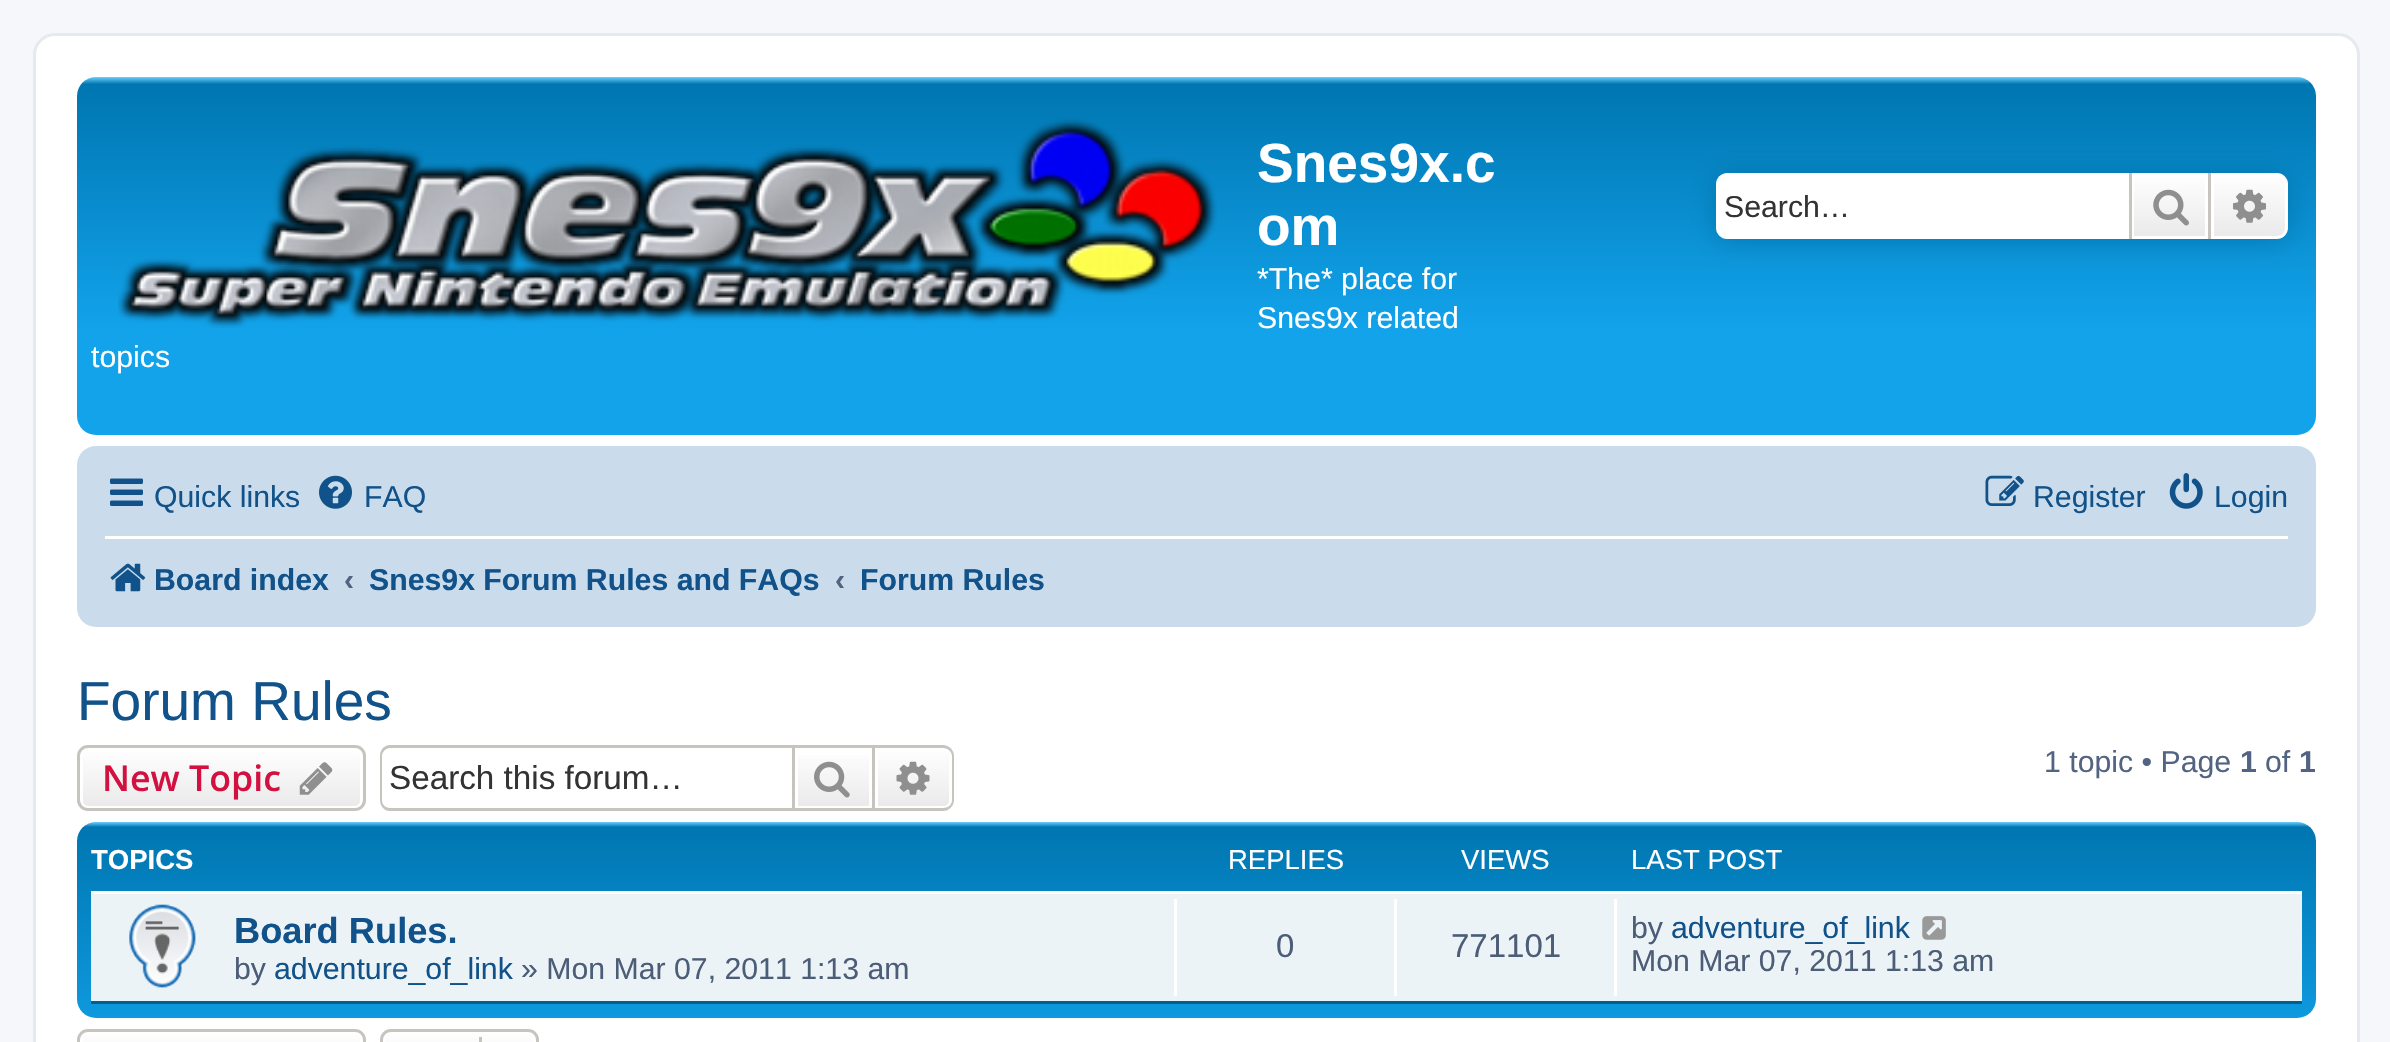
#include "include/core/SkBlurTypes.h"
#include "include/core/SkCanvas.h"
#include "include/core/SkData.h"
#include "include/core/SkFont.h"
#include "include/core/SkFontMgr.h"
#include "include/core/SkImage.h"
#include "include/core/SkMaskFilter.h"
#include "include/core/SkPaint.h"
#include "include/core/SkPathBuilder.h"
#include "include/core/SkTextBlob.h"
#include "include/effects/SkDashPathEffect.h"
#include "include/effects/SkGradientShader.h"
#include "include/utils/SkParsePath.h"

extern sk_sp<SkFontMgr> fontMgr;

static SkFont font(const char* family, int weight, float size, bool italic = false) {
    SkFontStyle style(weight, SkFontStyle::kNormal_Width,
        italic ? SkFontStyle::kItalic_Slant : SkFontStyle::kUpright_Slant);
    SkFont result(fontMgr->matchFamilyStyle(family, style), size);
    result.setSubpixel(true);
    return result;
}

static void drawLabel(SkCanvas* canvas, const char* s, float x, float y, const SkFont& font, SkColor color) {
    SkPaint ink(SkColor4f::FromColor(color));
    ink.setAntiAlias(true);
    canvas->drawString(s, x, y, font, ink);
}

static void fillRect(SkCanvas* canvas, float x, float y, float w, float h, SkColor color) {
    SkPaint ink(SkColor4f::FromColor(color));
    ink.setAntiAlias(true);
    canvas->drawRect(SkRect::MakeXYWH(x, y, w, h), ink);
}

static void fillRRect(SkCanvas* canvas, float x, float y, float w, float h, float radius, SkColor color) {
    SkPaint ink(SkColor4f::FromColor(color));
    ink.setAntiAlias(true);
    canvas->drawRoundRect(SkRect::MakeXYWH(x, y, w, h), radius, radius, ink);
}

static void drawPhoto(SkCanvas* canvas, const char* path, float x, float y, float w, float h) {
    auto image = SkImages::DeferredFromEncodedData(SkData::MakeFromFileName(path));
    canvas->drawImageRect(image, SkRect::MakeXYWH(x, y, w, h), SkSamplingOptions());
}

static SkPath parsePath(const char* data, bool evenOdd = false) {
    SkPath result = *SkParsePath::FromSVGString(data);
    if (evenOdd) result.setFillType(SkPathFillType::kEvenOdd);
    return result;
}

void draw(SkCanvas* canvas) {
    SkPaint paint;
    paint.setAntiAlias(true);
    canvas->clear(0xFFF5F7FA);
    paint.setColor(0xFFFFFFFF);
    canvas->drawRoundRect(SkRect::MakeXYWH(34.5f, 34.5f, 2324, 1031), 20.5f, 20.5f, paint);
    paint.setStroke(true);
    paint.setStrokeWidth(3);
    paint.setColor(0xFFE6E9ED);
    canvas->drawRoundRect(SkRect::MakeXYWH(34.5f, 34.5f, 2324, 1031), 20.5f, 20.5f, paint);
    paint.setStroke(false);
    {
        const SkColor colors[] = {0xFF6ACEFF, 0xFF0076B1, 0xFF12A3EB, 0xFF12A3EB};
        const float stops[] = {0, 0.02f, 0.71f, 1};
        const SkPoint ends[] = {{1196, 77}, {1196, 435}};
        paint.setShader(SkGradientShader::MakeLinear(ends, colors, stops, 4, SkTileMode::kClamp));
        paint.setAlpha(255);
    }
    canvas->drawRoundRect(SkRect::MakeXYWH(77, 77, 2239, 358), 19, 19, paint);
    drawPhoto(canvas, "assets/img1.png", 118, 118, 1099, 210);
    SkFont font1 = font("Liberation Sans", 700, 55);
    drawLabel(canvas, "Snes9x.c", 1257, 182, font1, 0xFFFFFFFF);
    drawLabel(canvas, "om", 1257, 245, font1, 0xFFFFFFFF);
    SkFont font2 = font("Liberation Sans", 400, 30.25f);
    drawLabel(canvas, "*The* place for", 1257, 289, font2, 0xFFFFFFFF);
    drawLabel(canvas, "Snes9x related", 1257, 328, font2, 0xFFFFFFFF);
    drawLabel(canvas, "topics", 91, 367, font2, 0xFFFFFFFF);
    paint.setShader(nullptr);
    paint.setColor(0xFF0075B0);
    paint.setMaskFilter(SkMaskFilter::MakeBlur(kNormal_SkBlurStyle, 14));
    canvas->drawRoundRect(SkRect::MakeXYWH(1716, 173, 572, 66), 11, 11, paint);
    paint.setMaskFilter(nullptr);
    paint.setColor(0xFFFFFFFF);
    canvas->drawPath(parsePath("M1727 173H2129V239H1727C1721 239 1716 234 1716 228V184C1716 178 1721 173 1727 173Z"), paint);
    drawLabel(canvas, "Search…", 1724, 217, font2, 0xFF333333);
    {
        const SkColor colors[] = {0xFFFFFFFF, 0xFFE9E9E9};
        const float stops[] = {0, 1};
        const SkPoint ends[] = {{2170, 173}, {2170, 239}};
        paint.setShader(SkGradientShader::MakeLinear(ends, colors, stops, 2, SkTileMode::kClamp));
        paint.setAlpha(255);
    }
    canvas->drawRect(SkRect::MakeXYWH(2134, 176, 71, 60), paint);
    paint.setStroke(true);
    paint.setShader(nullptr);
    paint.setColor(0xFFFFFFFF);
    canvas->drawRect(SkRect::MakeXYWH(2132.5f, 174.5f, 74, 63), paint);
    fillRect(canvas, 2208, 173, 3, 66, 0xFFC7C3BF);
    fillRect(canvas, 2129, 173, 3, 66, 0xFFC7C3BF);
    drawPhoto(canvas, "assets/img2.png", 2153, 189, 36, 37);
    paint.setStroke(false);
    {
        const SkColor colors[] = {0xFFFFFFFF, 0xFFE9E9E9};
        const float stops[] = {0, 1};
        const SkPoint ends[] = {{2250, 173}, {2250, 239}};
        paint.setShader(SkGradientShader::MakeLinear(ends, colors, stops, 2, SkTileMode::kClamp));
        paint.setAlpha(255);
    }
    canvas->drawPath(parsePath("M2212.5 174.5H2277C2282 174.5 2286.5 179 2286.5 184V228C2286.5 233 2282 237.5 2277 237.5H2212.5Z"), paint);
    paint.setStroke(true);
    paint.setShader(nullptr);
    paint.setColor(0xFFFFFFFF);
    canvas->drawPath(parsePath("M2212.5 174.5H2277C2282 174.5 2286.5 179 2286.5 184V228C2286.5 233 2282 237.5 2277 237.5H2212.5Z"), paint);
    drawPhoto(canvas, "assets/img3.png", 2233, 189, 33, 34);
    fillRRect(canvas, 77, 446, 2239, 181, 19, 0xFFCADCEB);
    drawPhoto(canvas, "assets/img4.png", 110, 478, 33, 28);
    drawLabel(canvas, "Quick links", 154, 507, font2, 0xFF105289);
    drawPhoto(canvas, "assets/img5.png", 319, 475, 33, 34);
    drawLabel(canvas, "FAQ", 364, 507, font2, 0xFF105289);
    drawPhoto(canvas, "assets/img6.png", 1985, 475, 39, 31);
    drawLabel(canvas, "Register", 2033, 507, font2, 0xFF105289);
    drawPhoto(canvas, "assets/img7.png", 2169, 473, 34, 36);
    drawLabel(canvas, "Login", 2214, 507, font2, 0xFF105289);
    fillRect(canvas, 105, 536, 2183, 3, 0xFFFFFFFF);
    drawPhoto(canvas, "assets/img8.png", 110, 563, 36, 29);
    SkFont font3 = font("Liberation Sans", 700, 30.25f);
    drawLabel(canvas, "Board index", 154, 590, font3, 0xFF105289);
    drawLabel(canvas, "‹", 344, 590, font3, 0xFF536482);
    drawLabel(canvas, "Snes9x Forum Rules and FAQs", 369, 590, font3, 0xFF105289);
    drawLabel(canvas, "‹", 835, 590, font3, 0xFF536482);
    drawLabel(canvas, "Forum Rules", 860, 590, font3, 0xFF105289);
    SkFont font4 = font("Liberation Sans", 400, 55);
    drawLabel(canvas, "Forum Rules", 77, 720, font4, 0xFF105289);
    canvas->save();
    canvas->clipPath(parsePath("M88 745H355C361 745 366 750 366 756V800C366 806 361 811 355 811H88C82 811 77 806 77 800V756C77 750 82 745 88 745Z"), true);
    paint.setStroke(false);
    {
        const SkColor colors[] = {0xFFFFFFFF, 0xFFE9E9E9};
        const float stops[] = {0, 1};
        const SkPoint ends[] = {{221, 748}, {221, 809}};
        paint.setShader(SkGradientShader::MakeLinear(ends, colors, stops, 2, SkTileMode::kClamp));
        paint.setAlpha(255);
    }
    canvas->drawRect(SkRect::MakeXYWH(77, 748, 289, 61), paint);
    canvas->restore();
    paint.setStroke(true);
    paint.setShader(nullptr);
    paint.setColor(0xFFFFFFFF);
    canvas->drawRoundRect(SkRect::MakeXYWH(81.5f, 749.5f, 280, 58), 6.5f, 6.5f, paint);
    paint.setColor(0xFFC7C3BF);
    canvas->drawRoundRect(SkRect::MakeXYWH(78.5f, 746.5f, 286, 63), 9.5f, 9.5f, paint);
    SkFont font5 = font("Open Sans", 600, 35.75f);
    drawLabel(canvas, "New Topic", 102, 791, font5, 0xFFD31141);
    drawPhoto(canvas, "assets/img9.png", 299, 762, 34, 33);
    paint.setStroke(false);
    canvas->drawPath(parsePath("M390 745H792V811H390C384 811 380 806 380 800V756C380 750 384 745 390 745ZM390 748H792V808H390C386 808 382 805 382 800V756C382 752 386 748 390 748Z", true), paint);
    SkFont font6 = font("Liberation Sans", 400, 33.25f);
    drawLabel(canvas, "Search this forum…", 389, 789, font6, 0xFF333333);
    {
        const SkColor colors[] = {0xFFFFFFFF, 0xFFE9E9E9};
        const float stops[] = {0, 1};
        const SkPoint ends[] = {{833, 748}, {833, 809}};
        paint.setShader(SkGradientShader::MakeLinear(ends, colors, stops, 2, SkTileMode::kClamp));
        paint.setAlpha(255);
    }
    canvas->drawRect(SkRect::MakeXYWH(798, 755, 71, 51), paint);
    paint.setStroke(true);
    paint.setShader(nullptr);
    paint.setColor(0xFFC7C3BF);
    canvas->drawRect(SkRect::MakeXYWH(793.5f, 746.5f, 80, 63), paint);
    drawPhoto(canvas, "assets/img10.png", 814, 761, 36, 37);
    paint.setStroke(false);
    {
        const SkColor colors[] = {0xFFFFFFFF, 0xFFE9E9E9};
        const float stops[] = {0, 1};
        const SkPoint ends[] = {{913, 748}, {913, 809}};
        paint.setShader(SkGradientShader::MakeLinear(ends, colors, stops, 2, SkTileMode::kClamp));
        paint.setAlpha(255);
    }
    canvas->drawPath(parsePath("M876.5 749.5H944C947.5 749.5 950.5 752.5 950.5 756V801C950.5 804.5 947.5 807.5 944 807.5H876.5Z"), paint);
    paint.setStroke(true);
    paint.setShader(nullptr);
    paint.setColor(0xFFFFFFFF);
    canvas->drawPath(parsePath("M876.5 749.5H944C947.5 749.5 950.5 752.5 950.5 756V801C950.5 804.5 947.5 807.5 944 807.5H876.5Z"), paint);
    paint.setStroke(false);
    paint.setColor(0xFFC7C3BF);
    canvas->drawPath(parsePath("M874 745H943C949 745 954 750 954 756V800C954 806 949 811 943 811H874ZM874 748H943C948 748 952 752 952 756V800C952 805 948 808 943 808H874Z", true), paint);
    drawPhoto(canvas, "assets/img11.png", 896, 761, 34, 34);
    drawLabel(canvas, "1 topic • Page", 2044, 772, font2, 0xFF536482);
    drawLabel(canvas, "1", 2240, 772, font3, 0xFF536482);
    drawLabel(canvas, "of", 2265, 772, font2, 0xFF536482);
    drawLabel(canvas, "1", 2299, 772, font3, 0xFF536482);
    {
        const SkColor colors[] = {0xFF6ACEFF, 0xFF0076B1, 0xFF12A3EB};
        const float stops[] = {0, 0.02f, 1};
        const SkPoint ends[] = {{1196, 822}, {1196, 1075}};
        paint.setShader(SkGradientShader::MakeLinear(ends, colors, stops, 3, SkTileMode::kClamp));
        paint.setAlpha(255);
    }
    canvas->drawRoundRect(SkRect::MakeXYWH(77, 822, 2239, 196), 19, 19, paint);
    SkFont font7 = font("Liberation Sans", 700, 27.5f);
    drawLabel(canvas, "TOPICS", 91, 869, font7, 0xFFFFFFFF);
    SkFont font8 = font("Liberation Sans", 400, 27.5f);
    drawLabel(canvas, "REPLIES", 1228, 869, font8, 0xFFFFFFFF);
    drawLabel(canvas, "VIEWS", 1461, 869, font8, 0xFFFFFFFF);
    drawLabel(canvas, "LAST POST", 1631, 869, font8, 0xFFFFFFFF);
    fillRect(canvas, 91, 894, 2211, 107, 0xFFECF3F7);
    fillRect(canvas, 91, 891, 2211, 3, 0xFFFFFFFF);
    fillRect(canvas, 91, 1001, 2211, 3, 0xFF00608F);
    drawPhoto(canvas, "assets/img12.png", 129, 904, 67, 84);
    SkFont font9 = font("Liberation Sans", 700, 36.25f);
    drawLabel(canvas, "Board Rules.", 234, 943, font9, 0xFF105289);
    drawLabel(canvas, "by", 234, 979, font2, 0xFF4C5D77);
    drawLabel(canvas, "adventure_of_link", 274, 979, font2, 0xFF105289);
    drawLabel(canvas, "» Mon Mar 07, 2011 1:13 am", 521, 979, font2, 0xFF4C5D77);
    fillRect(canvas, 1174, 899, 3, 97, 0xFFFFFFFF);
    SkFont font10 = font("Liberation Sans", 400, 33);
    drawLabel(canvas, "0", 1276, 957, font10, 0xFF4C5D77);
    fillRect(canvas, 1394, 899, 3, 97, 0xFFFFFFFF);
    drawLabel(canvas, "771101", 1451, 957, font10, 0xFF4C5D77);
    fillRect(canvas, 1614, 899, 3, 97, 0xFFFFFFFF);
    drawLabel(canvas, "by", 1631, 938, font2, 0xFF4C5D77);
    drawLabel(canvas, "adventure_of_link", 1671, 938, font2, 0xFF105289);
    drawPhoto(canvas, "assets/img13.png", 1922, 916, 24, 24);
    drawLabel(canvas, "Mon Mar 07, 2011 1:13 am", 1631, 971, font2, 0xFF4C5D77);
    canvas->save();
    canvas->clipPath(parsePath("M88 1029H355C361 1029 366 1034 366 1040V1084C366 1090 361 1095 355 1095H88C82 1095 77 1090 77 1084V1040C77 1034 82 1029 88 1029Z"), true);
    {
        const SkColor colors[] = {0xFFFFFFFF, 0xFFE9E9E9};
        const float stops[] = {0, 1};
        const SkPoint ends[] = {{221, 1031}, {221, 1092}};
        paint.setShader(SkGradientShader::MakeLinear(ends, colors, stops, 2, SkTileMode::kClamp));
        paint.setAlpha(255);
    }
    canvas->drawRect(SkRect::MakeXYWH(77, 1031, 289, 11), paint);
    canvas->restore();
    paint.setStroke(true);
    paint.setShader(nullptr);
    paint.setColor(0xFFFFFFFF);
    canvas->drawRoundRect(SkRect::MakeXYWH(81.5f, 1032.5f, 280, 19), 6.5f, 6.5f, paint);
    paint.setColor(0xFFC7C3BF);
    canvas->drawRoundRect(SkRect::MakeXYWH(78.5f, 1030.5f, 286, 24), 9.5f, 9.5f, paint);
    canvas->save();
    canvas->clipPath(parsePath("M391 1029H528C534 1029 539 1034 539 1040V1084C539 1090 534 1095 528 1095H391C385 1095 380 1090 380 1084V1040C380 1034 385 1029 391 1029Z"), true);
    paint.setStroke(false);
    {
        const SkColor colors[] = {0xFFFFFFFF, 0xFFE9E9E9};
        const float stops[] = {0, 1};
        const SkPoint ends[] = {{459, 1031}, {459, 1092}};
        paint.setShader(SkGradientShader::MakeLinear(ends, colors, stops, 2, SkTileMode::kClamp));
        paint.setAlpha(255);
    }
    canvas->drawRect(SkRect::MakeXYWH(380, 1031, 159, 11), paint);
    canvas->restore();
    paint.setStroke(true);
    paint.setShader(nullptr);
    paint.setColor(0xFFFFFFFF);
    canvas->drawRoundRect(SkRect::MakeXYWH(383.5f, 1032.5f, 151, 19), 6.5f, 6.5f, paint);
    paint.setColor(0xFFC7C3BF);
    canvas->drawRoundRect(SkRect::MakeXYWH(381.5f, 1030.5f, 156, 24), 9.5f, 9.5f, paint);
    fillRect(canvas, 479, 1037, 3, 5, 0xFFC7C3BF);
}
